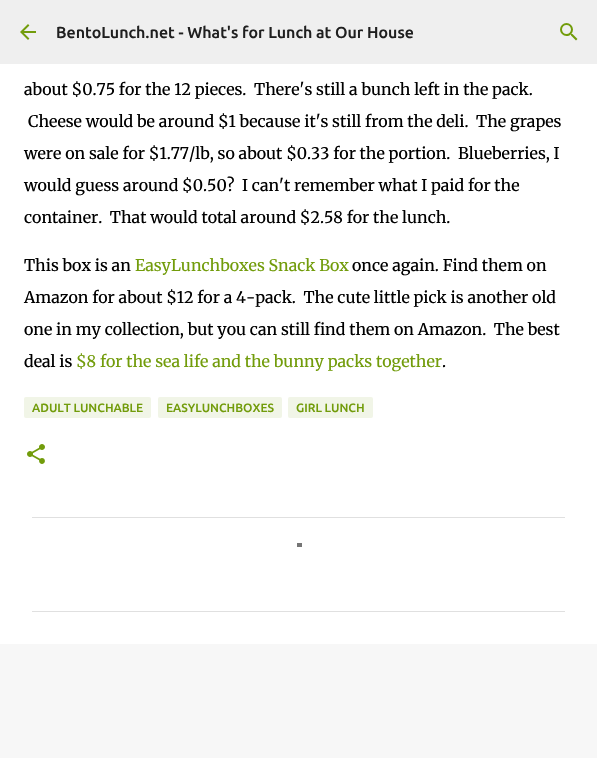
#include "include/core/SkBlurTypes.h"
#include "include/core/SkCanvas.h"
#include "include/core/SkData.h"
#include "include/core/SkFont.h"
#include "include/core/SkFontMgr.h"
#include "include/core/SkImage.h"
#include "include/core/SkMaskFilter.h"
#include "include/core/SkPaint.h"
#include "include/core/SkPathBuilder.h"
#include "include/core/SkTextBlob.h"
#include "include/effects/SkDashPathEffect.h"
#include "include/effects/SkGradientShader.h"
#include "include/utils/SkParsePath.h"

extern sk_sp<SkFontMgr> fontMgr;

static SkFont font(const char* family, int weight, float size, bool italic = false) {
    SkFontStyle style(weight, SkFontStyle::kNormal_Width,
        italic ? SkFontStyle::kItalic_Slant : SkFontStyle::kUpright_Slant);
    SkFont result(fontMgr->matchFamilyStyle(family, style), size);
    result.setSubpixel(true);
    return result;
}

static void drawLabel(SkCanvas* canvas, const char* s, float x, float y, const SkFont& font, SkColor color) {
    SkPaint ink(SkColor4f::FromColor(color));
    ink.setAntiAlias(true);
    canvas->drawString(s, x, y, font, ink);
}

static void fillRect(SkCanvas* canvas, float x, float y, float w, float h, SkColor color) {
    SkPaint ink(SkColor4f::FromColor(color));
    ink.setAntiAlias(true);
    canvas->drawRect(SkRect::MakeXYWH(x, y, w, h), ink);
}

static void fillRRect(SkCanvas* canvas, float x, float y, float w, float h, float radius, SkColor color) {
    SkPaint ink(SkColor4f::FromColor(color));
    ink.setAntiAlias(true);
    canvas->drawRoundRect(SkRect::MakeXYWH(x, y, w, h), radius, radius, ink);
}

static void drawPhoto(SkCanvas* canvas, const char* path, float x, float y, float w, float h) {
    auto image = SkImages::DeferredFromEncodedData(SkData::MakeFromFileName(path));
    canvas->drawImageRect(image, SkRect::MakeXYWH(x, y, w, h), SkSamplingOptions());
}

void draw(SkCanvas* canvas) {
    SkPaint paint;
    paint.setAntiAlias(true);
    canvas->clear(0xFFF7F7F7);
    fillRect(canvas, 0, 0, 597, 64, 0xFFEFEFEF);
    drawPhoto(canvas, "assets/img1.png", 20, 24, 16, 16);
    SkFont font1 = font("Ubuntu", 500, 16);
    drawLabel(canvas, "BentoLunch.net - What's for Lunch at Our House", 56, 38, font1, 0xFF1F1F1F);
    drawPhoto(canvas, "assets/img2.png", 560, 23, 18, 18);
    fillRect(canvas, 0, 64, 597, 580, 0xFFFFFFFF);
    SkFont font2 = font("Merriweather", 400, 16);
    drawLabel(canvas, "about $0.75 for the 12 pieces.  There's still a bunch left in the pack.", 24, 95, font2, 0xFF000000);
    drawLabel(canvas, "Cheese would be around $1 because it's still from the deli.  The grapes", 28, 127, font2, 0xFF000000);
    drawLabel(canvas, "were on sale for $1.77/lb, so about $0.33 for the portion.  Blueberries, I", 24, 159, font2, 0xFF000000);
    drawLabel(canvas, "would guess around $0.50?  I can't remember what I paid for the", 24, 191, font2, 0xFF000000);
    drawLabel(canvas, "container.  That would total around $2.58 for the lunch.", 24, 223, font2, 0xFF000000);
    drawLabel(canvas, "This box is an", 24, 271, font2, 0xFF000000);
    drawLabel(canvas, "EasyLunchboxes Snack Box", 135, 271, font2, 0xFF729C0B);
    drawLabel(canvas, "once again. Find them on", 352, 271, font2, 0xFF000000);
    drawLabel(canvas, "Amazon for about $12 for a 4-pack.  The cute little pick is another old", 24, 303, font2, 0xFF000000);
    drawLabel(canvas, "one in my collection, but you can still find them on Amazon.  The best", 24, 335, font2, 0xFF000000);
    drawLabel(canvas, "deal is", 24, 367, font2, 0xFF000000);
    drawLabel(canvas, "$8 for the sea life and the bunny packs together", 76, 367, font2, 0xFF729C0B);
    drawLabel(canvas, ".", 442, 367, font2, 0xFF000000);
    fillRRect(canvas, 24, 397, 127, 21, 2, 0xFFF1F5E7);
    SkFont font3 = font("Ubuntu", 500, 12);
    drawLabel(canvas, "ADULT LUNCHABLE", 32, 412, font3, 0xFF729C0B);
    fillRRect(canvas, 158, 397, 124, 21, 2, 0xFFF1F5E7);
    drawLabel(canvas, "EASYLUNCHBOXES", 166, 412, font3, 0xFF729C0B);
    fillRRect(canvas, 288, 397, 85, 21, 2, 0xFFF1F5E7);
    drawLabel(canvas, "GIRL LUNCH", 296, 412, font3, 0xFF729C0B);
    drawPhoto(canvas, "assets/img3.png", 27, 444, 18, 20);
    fillRect(canvas, 32, 517, 533, 1, 0xFFE0E0E0);
    fillRect(canvas, 32, 611, 533, 1, 0xFFE0E0E0);
    fillRect(canvas, 297, 543, 5, 4, 0xFF757575);
}
